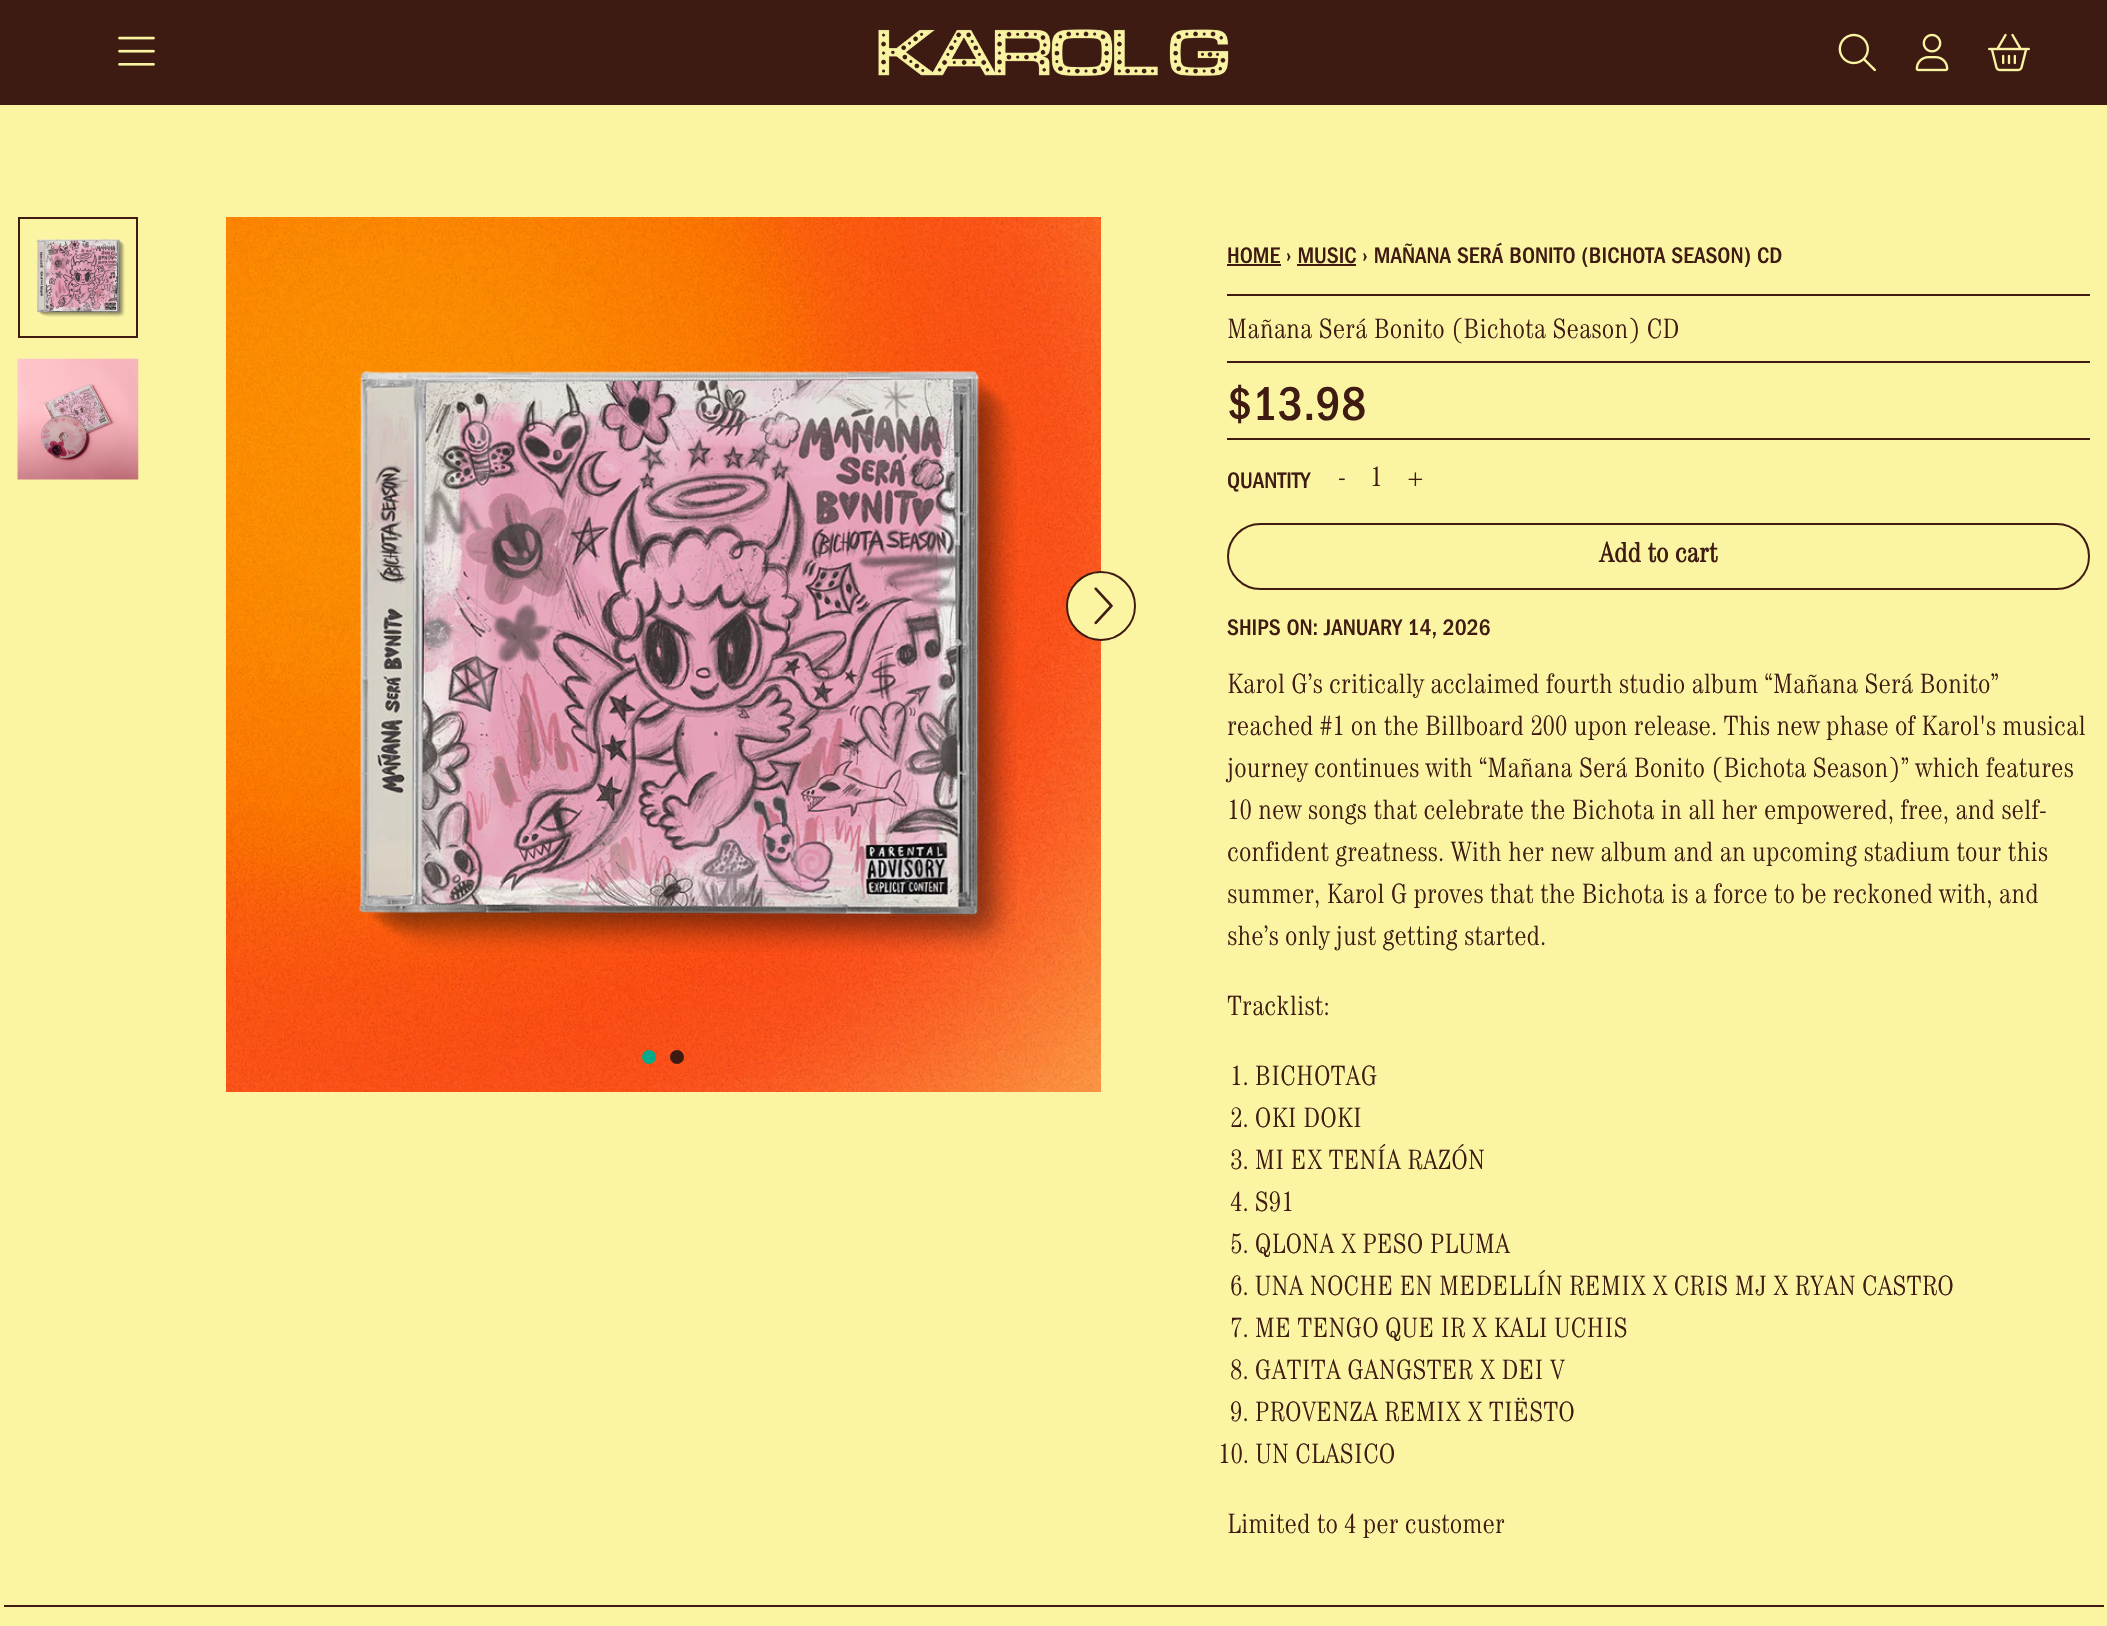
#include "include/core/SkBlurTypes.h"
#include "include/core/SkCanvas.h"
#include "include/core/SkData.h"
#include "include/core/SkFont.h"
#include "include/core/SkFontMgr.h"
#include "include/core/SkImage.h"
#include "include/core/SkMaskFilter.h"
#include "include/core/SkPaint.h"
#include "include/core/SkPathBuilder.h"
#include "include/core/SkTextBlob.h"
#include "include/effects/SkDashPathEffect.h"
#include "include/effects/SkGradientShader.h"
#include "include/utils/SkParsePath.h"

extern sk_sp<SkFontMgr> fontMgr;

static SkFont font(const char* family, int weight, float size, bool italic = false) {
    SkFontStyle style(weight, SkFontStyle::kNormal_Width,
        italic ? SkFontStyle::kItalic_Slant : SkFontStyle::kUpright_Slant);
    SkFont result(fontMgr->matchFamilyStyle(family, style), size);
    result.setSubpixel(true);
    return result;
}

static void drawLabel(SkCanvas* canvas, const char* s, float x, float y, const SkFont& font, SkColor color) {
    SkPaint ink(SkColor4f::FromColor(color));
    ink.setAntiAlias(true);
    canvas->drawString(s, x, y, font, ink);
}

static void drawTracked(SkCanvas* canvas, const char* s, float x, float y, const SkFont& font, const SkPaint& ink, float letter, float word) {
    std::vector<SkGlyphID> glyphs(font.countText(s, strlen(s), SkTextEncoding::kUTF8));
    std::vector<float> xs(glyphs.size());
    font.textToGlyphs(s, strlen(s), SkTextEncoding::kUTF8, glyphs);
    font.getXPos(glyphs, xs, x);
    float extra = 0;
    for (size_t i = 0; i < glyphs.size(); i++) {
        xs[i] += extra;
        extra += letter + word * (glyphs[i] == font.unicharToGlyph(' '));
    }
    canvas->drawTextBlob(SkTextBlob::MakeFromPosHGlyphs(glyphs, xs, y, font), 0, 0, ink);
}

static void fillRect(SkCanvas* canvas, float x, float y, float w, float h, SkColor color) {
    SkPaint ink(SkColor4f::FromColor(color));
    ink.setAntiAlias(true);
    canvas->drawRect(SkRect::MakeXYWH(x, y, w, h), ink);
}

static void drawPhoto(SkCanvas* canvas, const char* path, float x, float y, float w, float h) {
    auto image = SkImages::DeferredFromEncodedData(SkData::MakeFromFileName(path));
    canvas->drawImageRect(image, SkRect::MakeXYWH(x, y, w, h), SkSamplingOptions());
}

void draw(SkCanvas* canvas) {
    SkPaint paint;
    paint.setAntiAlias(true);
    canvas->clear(0xFFFAF4A3);
    fillRect(canvas, 0, 0, 2107, 105, 0xFF3E1B12);
    drawPhoto(canvas, "assets/img1.png", 118, 36, 37, 30);
    drawPhoto(canvas, "assets/img2.png", 878, 29, 351, 47);
    drawPhoto(canvas, "assets/img3.png", 1838, 33, 38, 39);
    drawPhoto(canvas, "assets/img4.png", 1915, 33, 34, 39);
    drawPhoto(canvas, "assets/img5.png", 1988, 33, 42, 39);
    paint.setStroke(true);
    paint.setStrokeWidth(2);
    paint.setColor(0xFF3F1B12);
    canvas->drawRect(SkRect::MakeXYWH(19, 218, 118, 119), paint);
    drawPhoto(canvas, "assets/img6.png", 37, 239, 88, 78);
    drawPhoto(canvas, "assets/img7.png", 17, 358, 122, 122);
    drawPhoto(canvas, "assets/img8.png", 226, 217, 875, 875);
    drawPhoto(canvas, "assets/img9.png", 359, 371, 658, 582);
    paint.setStroke(false);
    paint.setColor(0xFFFAF4A3);
    canvas->drawCircle(1101, 606, 34, paint);
    paint.setStroke(true);
    paint.setColor(0xFF3F1B12);
    canvas->drawCircle(1101, 606, 34, paint);
    drawPhoto(canvas, "assets/img10.png", 1094, 587, 19, 38);
    paint.setStroke(false);
    paint.setColor(0xFF02A98B);
    canvas->drawCircle(649, 1057, 7, paint);
    paint.setColor(0xFF3E1B12);
    canvas->drawCircle(677, 1057, 7, paint);
    fillRect(canvas, 1227, 264, 54, 2, 0xFF3F1B12);
    SkFont font1 = font("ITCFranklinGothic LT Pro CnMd", 500, 23.3f);
    drawLabel(canvas, "HOME › MUSIC › MAÑANA SERÁ BONITO (BICHOTA SEASON) CD", 1227, 263, font1, 0xFF3F1B12);
    fillRect(canvas, 1297, 264, 59, 2, 0xFF3F1B12);
    fillRect(canvas, 1227, 294, 863, 2, 0xFF3F1B12);
    SkFont font2 = font("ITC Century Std", 300, 28);
    drawLabel(canvas, "Mañana Será Bonito (Bichota Season) CD", 1227, 338, font2, 0xFF3F1B12);
    fillRect(canvas, 1227, 361, 863, 2, 0xFF3F1B12);
    SkFont font3 = font("ITCFranklinGothic LT Pro CnMd", 500, 49);
    paint.setColor(0xFF3F1B12);
    drawTracked(canvas, "$13.98", 1227, 420, font3, paint, 0.5f, 0);
    fillRect(canvas, 1227, 438, 863, 2, 0xFF3F1B12);
    drawLabel(canvas, "QUANTITY", 1227, 488, font1, 0xFF3F1B12);
    drawLabel(canvas, "-", 1338, 486, font2, 0xFF3F1B12);
    drawLabel(canvas, "1", 1370, 486, font2, 0xFF3F1B12);
    drawLabel(canvas, "+", 1407, 486, font2, 0xFF3F1B12);
    paint.setStroke(true);
    canvas->drawRoundRect(SkRect::MakeXYWH(1228, 524, 861, 65), 32.5f, 32.5f, paint);
    SkFont font4 = font("ITC Century Std", 700, 28);
    drawLabel(canvas, "Add to cart", 1599, 562, font4, 0xFF3F1B12);
    drawLabel(canvas, "SHIPS ON: JANUARY 14, 2026", 1227, 635, font1, 0xFF3F1B12);
    drawLabel(canvas, "Karol G’s critically acclaimed fourth studio album “Mañana Será Bonito”", 1227, 693, font2, 0xFF3F1B12);
    drawLabel(canvas, "reached #1 on the Billboard 200 upon release. This new phase of Karol's musical", 1227, 735, font2, 0xFF3F1B12);
    drawLabel(canvas, "journey continues with “Mañana Será Bonito (Bichota Season)” which features", 1227, 777, font2, 0xFF3F1B12);
    drawLabel(canvas, "10 new songs that celebrate the Bichota in all her empowered, free, and self-", 1227, 819, font2, 0xFF3F1B12);
    drawLabel(canvas, "confident greatness. With her new album and an upcoming stadium tour this", 1227, 861, font2, 0xFF3F1B12);
    drawLabel(canvas, "summer, Karol G proves that the Bichota is a force to be reckoned with, and", 1227, 903, font2, 0xFF3F1B12);
    drawLabel(canvas, "she’s only just getting started.", 1227, 945, font2, 0xFF3F1B12);
    drawLabel(canvas, "Tracklist:", 1227, 1015, font2, 0xFF3F1B12);
    drawLabel(canvas, "1. BICHOTAG", 1230, 1085, font2, 0xFF3F1B12);
    drawLabel(canvas, "2. OKI DOKI", 1230, 1127, font2, 0xFF3F1B12);
    drawLabel(canvas, "3. MI EX TENÍA RAZÓN", 1230, 1169, font2, 0xFF3F1B12);
    drawLabel(canvas, "4. S91", 1230, 1211, font2, 0xFF3F1B12);
    drawLabel(canvas, "5. QLONA X PESO PLUMA", 1230, 1253, font2, 0xFF3F1B12);
    drawLabel(canvas, "6. UNA NOCHE EN MEDELLÍN REMIX X CRIS MJ X RYAN CASTRO", 1230, 1295, font2, 0xFF3F1B12);
    drawLabel(canvas, "7. ME TENGO QUE IR X KALI UCHIS", 1230, 1337, font2, 0xFF3F1B12);
    drawLabel(canvas, "8. GATITA GANGSTER X DEI V", 1230, 1379, font2, 0xFF3F1B12);
    drawLabel(canvas, "9. PROVENZA REMIX X TIËSTO", 1230, 1421, font2, 0xFF3F1B12);
    drawLabel(canvas, "10. UN CLASICO", 1218, 1463, font2, 0xFF3F1B12);
    drawLabel(canvas, "Limited to 4 per customer", 1227, 1533, font2, 0xFF3F1B12);
    fillRect(canvas, 4, 1605, 2100, 2, 0xFF3F1B12);
}
